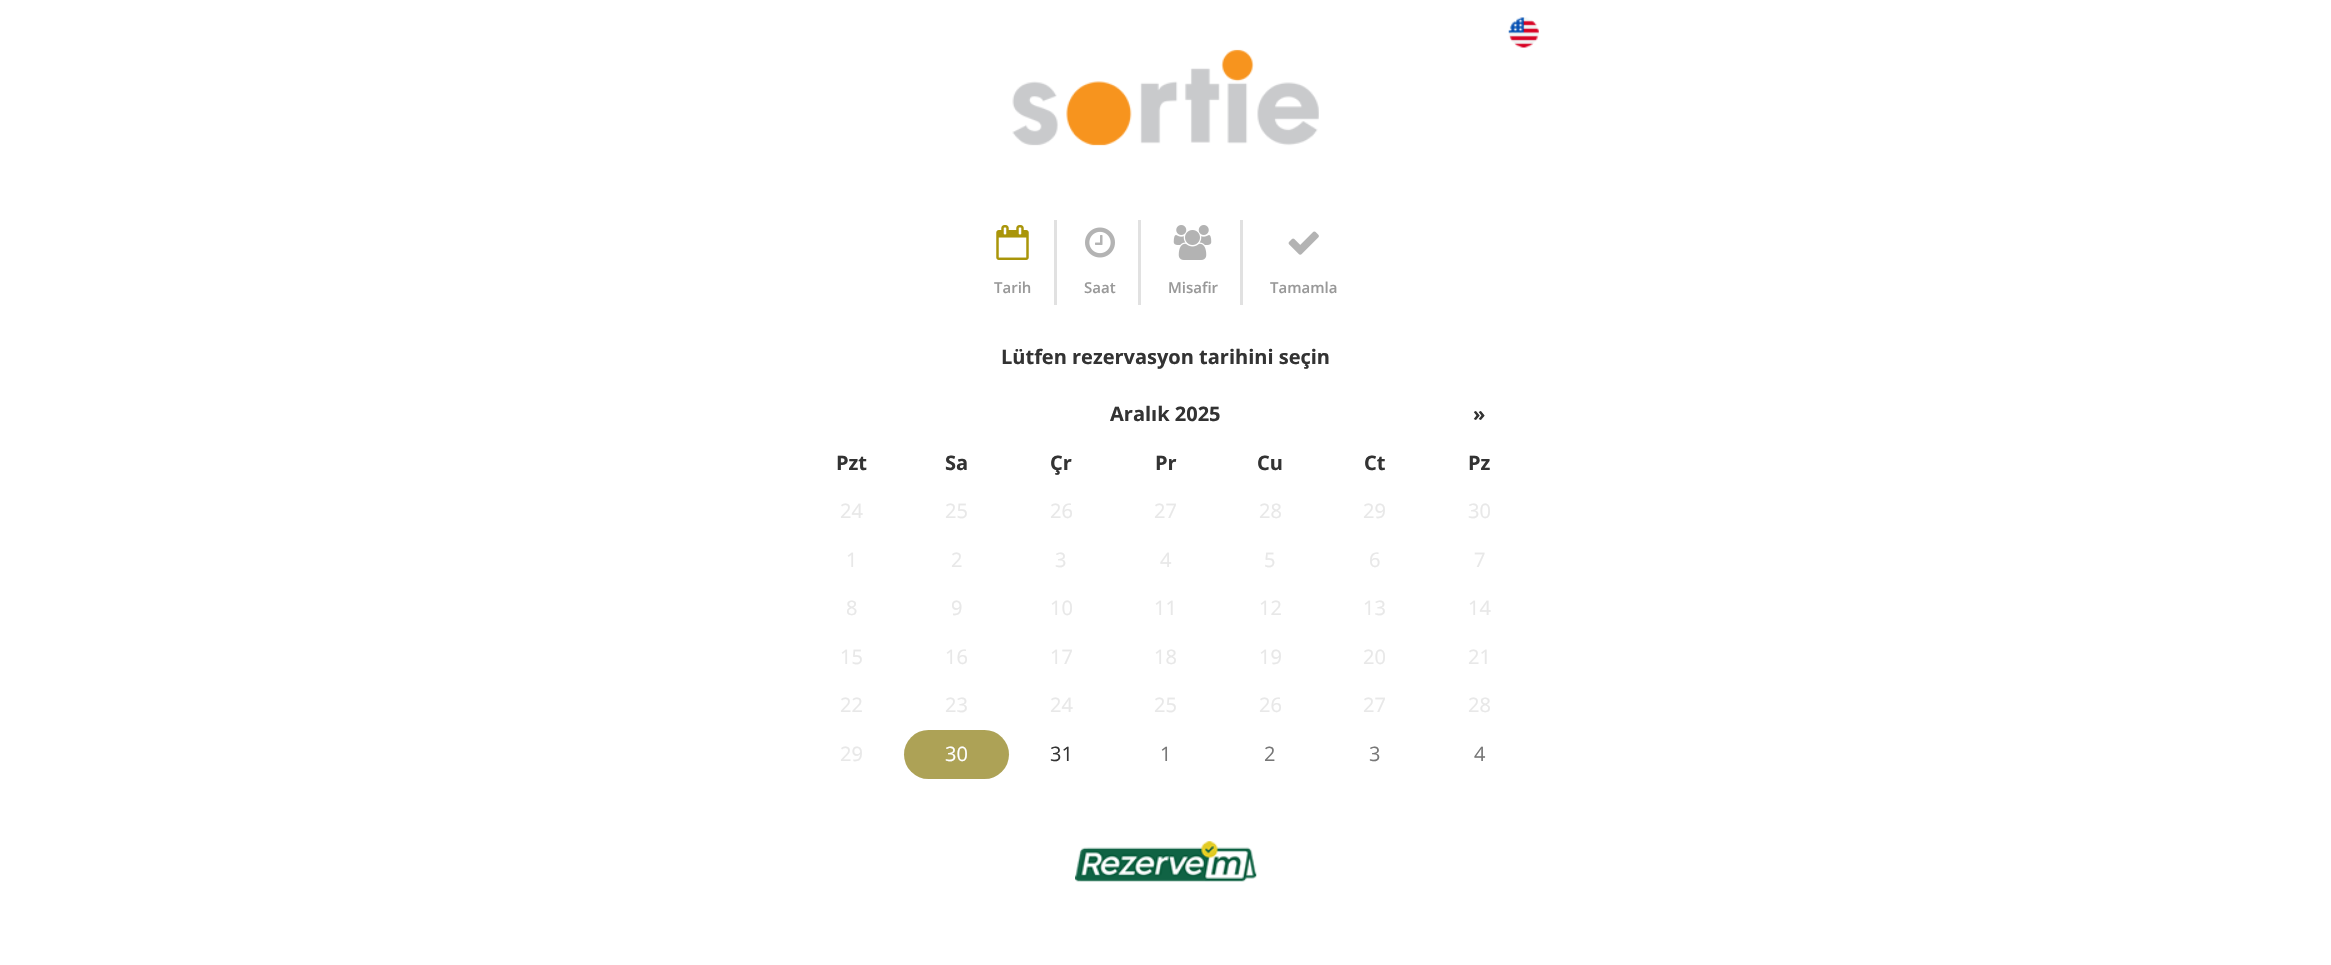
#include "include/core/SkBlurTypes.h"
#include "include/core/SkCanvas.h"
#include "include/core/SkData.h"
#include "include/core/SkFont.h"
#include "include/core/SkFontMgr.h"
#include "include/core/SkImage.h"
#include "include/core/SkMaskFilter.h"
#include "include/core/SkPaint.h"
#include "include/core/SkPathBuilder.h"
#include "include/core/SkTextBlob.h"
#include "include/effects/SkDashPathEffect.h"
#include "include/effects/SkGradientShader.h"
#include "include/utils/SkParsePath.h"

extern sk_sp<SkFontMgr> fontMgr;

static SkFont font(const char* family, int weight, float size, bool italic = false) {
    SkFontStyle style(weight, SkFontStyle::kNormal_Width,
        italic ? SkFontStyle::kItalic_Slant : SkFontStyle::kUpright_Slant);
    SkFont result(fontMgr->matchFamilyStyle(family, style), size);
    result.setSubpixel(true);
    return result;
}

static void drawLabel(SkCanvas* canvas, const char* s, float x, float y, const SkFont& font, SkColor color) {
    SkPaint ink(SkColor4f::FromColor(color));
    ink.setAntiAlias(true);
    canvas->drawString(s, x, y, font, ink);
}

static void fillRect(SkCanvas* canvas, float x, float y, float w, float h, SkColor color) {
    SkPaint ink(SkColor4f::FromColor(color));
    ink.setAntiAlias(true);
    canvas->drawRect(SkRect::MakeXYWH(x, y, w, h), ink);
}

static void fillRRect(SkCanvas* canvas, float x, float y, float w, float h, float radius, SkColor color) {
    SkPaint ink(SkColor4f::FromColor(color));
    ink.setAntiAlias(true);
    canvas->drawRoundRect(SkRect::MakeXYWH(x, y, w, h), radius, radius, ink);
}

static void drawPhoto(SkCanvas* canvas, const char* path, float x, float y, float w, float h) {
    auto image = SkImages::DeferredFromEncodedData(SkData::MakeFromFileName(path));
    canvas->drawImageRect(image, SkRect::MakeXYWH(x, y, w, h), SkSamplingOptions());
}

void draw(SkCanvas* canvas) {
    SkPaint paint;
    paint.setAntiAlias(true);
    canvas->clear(0xFFFFFFFF);
    drawPhoto(canvas, "assets/img1.png", 1508, 17, 31, 31);
    drawPhoto(canvas, "assets/img2.png", 1012, 49, 307, 97);
    fillRect(canvas, 1054, 220, 3, 85, 0xFFE1E1E1);
    drawPhoto(canvas, "assets/img3.png", 996, 225, 33, 35);
    SkFont font1 = font("Open Sans", 600, 15);
    drawLabel(canvas, "Tarih", 994, 293, font1, 0xFF999999);
    fillRect(canvas, 1138, 220, 3, 85, 0xFFE1E1E1);
    drawPhoto(canvas, "assets/img4.png", 1085, 227, 30, 31);
    drawLabel(canvas, "Saat", 1084, 293, font1, 0xFF999999);
    fillRect(canvas, 1240, 220, 3, 85, 0xFFE1E1E1);
    drawPhoto(canvas, "assets/img5.png", 1173, 225, 39, 35);
    drawLabel(canvas, "Misafir", 1168, 293, font1, 0xFF999999);
    drawPhoto(canvas, "assets/img6.png", 1288, 231, 31, 24);
    drawLabel(canvas, "Tamamla", 1270, 293, font1, 0xFF999999);
    SkFont font2 = font("Open Sans", 700, 20);
    drawLabel(canvas, "Lütfen rezervasyon tarihini seçin", 1001, 364, font2, 0xFF333333);
    drawLabel(canvas, "Aralık 2025", 1110, 421, font2, 0xFF333333);
    drawLabel(canvas, "»", 1473, 421, font2, 0xFF333333);
    drawLabel(canvas, "Pzt", 836, 470, font2, 0xFF333333);
    drawLabel(canvas, "Sa", 945, 470, font2, 0xFF333333);
    drawLabel(canvas, "Çr", 1050, 470, font2, 0xFF333333);
    drawLabel(canvas, "Pr", 1155, 470, font2, 0xFF333333);
    drawLabel(canvas, "Cu", 1257, 470, font2, 0xFF333333);
    drawLabel(canvas, "Ct", 1364, 470, font2, 0xFF333333);
    drawLabel(canvas, "Pz", 1468, 470, font2, 0xFF333333);
    SkFont font3 = font("Open Sans", 400, 20);
    drawLabel(canvas, "24", 840, 518, font3, 0xFFE8E8E8);
    drawLabel(canvas, "25", 945, 518, font3, 0xFFE8E8E8);
    drawLabel(canvas, "26", 1050, 518, font3, 0xFFE8E8E8);
    drawLabel(canvas, "27", 1154, 518, font3, 0xFFE8E8E8);
    drawLabel(canvas, "28", 1259, 518, font3, 0xFFE8E8E8);
    drawLabel(canvas, "29", 1363, 518, font3, 0xFFE8E8E8);
    drawLabel(canvas, "30", 1468, 518, font3, 0xFFE8E8E8);
    drawLabel(canvas, "1", 846, 567, font3, 0xFFE8E8E8);
    drawLabel(canvas, "2", 951, 567, font3, 0xFFE8E8E8);
    drawLabel(canvas, "3", 1055, 567, font3, 0xFFE8E8E8);
    drawLabel(canvas, "4", 1160, 567, font3, 0xFFE8E8E8);
    drawLabel(canvas, "5", 1264, 567, font3, 0xFFE8E8E8);
    drawLabel(canvas, "6", 1369, 567, font3, 0xFFE8E8E8);
    drawLabel(canvas, "7", 1474, 567, font3, 0xFFE8E8E8);
    drawLabel(canvas, "8", 846, 615, font3, 0xFFE8E8E8);
    drawLabel(canvas, "9", 951, 615, font3, 0xFFE8E8E8);
    drawLabel(canvas, "10", 1050, 615, font3, 0xFFE8E8E8);
    drawLabel(canvas, "11", 1154, 615, font3, 0xFFE8E8E8);
    drawLabel(canvas, "12", 1259, 615, font3, 0xFFE8E8E8);
    drawLabel(canvas, "13", 1363, 615, font3, 0xFFE8E8E8);
    drawLabel(canvas, "14", 1468, 615, font3, 0xFFE8E8E8);
    drawLabel(canvas, "15", 840, 664, font3, 0xFFE8E8E8);
    drawLabel(canvas, "16", 945, 664, font3, 0xFFE8E8E8);
    drawLabel(canvas, "17", 1050, 664, font3, 0xFFE8E8E8);
    drawLabel(canvas, "18", 1154, 664, font3, 0xFFE8E8E8);
    drawLabel(canvas, "19", 1259, 664, font3, 0xFFE8E8E8);
    drawLabel(canvas, "20", 1363, 664, font3, 0xFFE8E8E8);
    drawLabel(canvas, "21", 1468, 664, font3, 0xFFE8E8E8);
    drawLabel(canvas, "22", 840, 712, font3, 0xFFE8E8E8);
    drawLabel(canvas, "23", 945, 712, font3, 0xFFE8E8E8);
    drawLabel(canvas, "24", 1050, 712, font3, 0xFFE8E8E8);
    drawLabel(canvas, "25", 1154, 712, font3, 0xFFE8E8E8);
    drawLabel(canvas, "26", 1259, 712, font3, 0xFFE8E8E8);
    drawLabel(canvas, "27", 1363, 712, font3, 0xFFE8E8E8);
    drawLabel(canvas, "28", 1468, 712, font3, 0xFFE8E8E8);
    drawLabel(canvas, "29", 840, 761, font3, 0xFFE8E8E8);
    fillRRect(canvas, 904, 730, 105, 49, 24.5f, 0xFFADA256);
    drawLabel(canvas, "30", 945, 761, font3, 0xFFFFFFFF);
    drawLabel(canvas, "31", 1050, 761, font3, 0xFF333333);
    drawLabel(canvas, "1", 1160, 761, font3, 0xFF777777);
    drawLabel(canvas, "2", 1264, 761, font3, 0xFF777777);
    drawLabel(canvas, "3", 1369, 761, font3, 0xFF777777);
    drawLabel(canvas, "4", 1474, 761, font3, 0xFF777777);
    drawPhoto(canvas, "assets/img7.png", 1075, 841, 182, 41);
}
